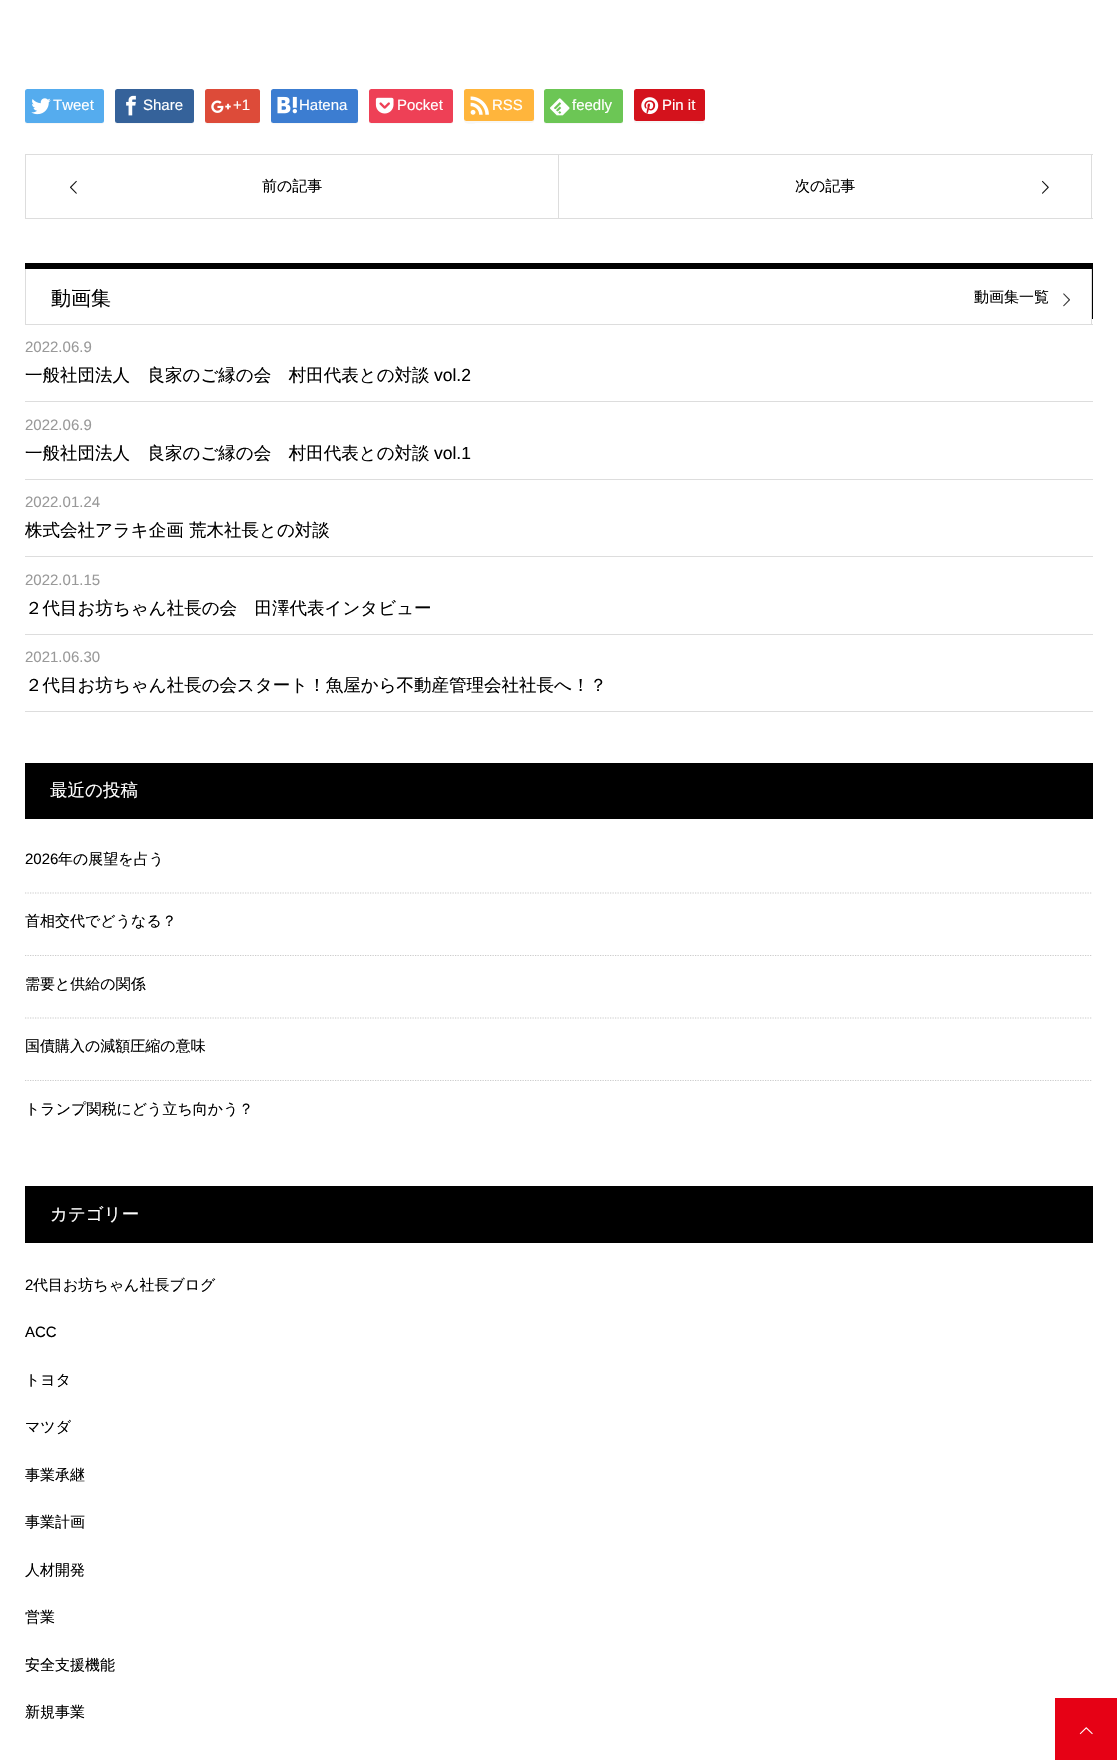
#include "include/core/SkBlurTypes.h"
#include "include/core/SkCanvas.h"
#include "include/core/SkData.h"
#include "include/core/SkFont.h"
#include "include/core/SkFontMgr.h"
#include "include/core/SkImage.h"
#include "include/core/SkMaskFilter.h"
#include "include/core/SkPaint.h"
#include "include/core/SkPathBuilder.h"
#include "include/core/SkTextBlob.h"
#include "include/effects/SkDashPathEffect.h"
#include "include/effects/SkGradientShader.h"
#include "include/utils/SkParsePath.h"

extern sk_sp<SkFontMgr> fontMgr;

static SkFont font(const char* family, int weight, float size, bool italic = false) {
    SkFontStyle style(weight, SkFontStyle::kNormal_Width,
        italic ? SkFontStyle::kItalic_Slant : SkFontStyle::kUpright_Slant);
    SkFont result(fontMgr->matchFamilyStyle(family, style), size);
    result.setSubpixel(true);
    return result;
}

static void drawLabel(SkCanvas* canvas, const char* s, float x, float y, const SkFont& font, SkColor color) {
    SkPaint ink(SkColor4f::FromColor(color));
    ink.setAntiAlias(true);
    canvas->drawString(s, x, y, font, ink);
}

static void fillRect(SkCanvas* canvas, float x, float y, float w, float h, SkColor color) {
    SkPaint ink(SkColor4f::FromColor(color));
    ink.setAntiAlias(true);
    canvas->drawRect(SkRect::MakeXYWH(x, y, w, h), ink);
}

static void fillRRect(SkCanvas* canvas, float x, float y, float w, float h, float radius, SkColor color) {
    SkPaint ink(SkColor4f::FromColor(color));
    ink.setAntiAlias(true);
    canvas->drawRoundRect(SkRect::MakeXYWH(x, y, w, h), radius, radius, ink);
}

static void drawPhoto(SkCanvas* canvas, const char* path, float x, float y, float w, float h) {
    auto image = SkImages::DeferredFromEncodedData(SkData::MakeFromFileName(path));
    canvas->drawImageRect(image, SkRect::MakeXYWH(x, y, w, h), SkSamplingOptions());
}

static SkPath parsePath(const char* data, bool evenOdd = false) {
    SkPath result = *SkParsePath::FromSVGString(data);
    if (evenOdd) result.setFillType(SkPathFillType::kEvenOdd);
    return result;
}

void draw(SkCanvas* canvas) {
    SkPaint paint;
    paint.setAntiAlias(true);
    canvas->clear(0xFFFFFFFF);
    paint.setColor(0xFFF7F7F7);
    canvas->drawPath(parsePath("M25 120C25 122 25 124 28 124H102C105 124 104 118 104 117V91V120C104 121 103 122 101 122H28C26 122 25 121 25 120Z"), paint);
    fillRRect(canvas, 25, 89, 79, 34, 2.5f, 0xFF55ACEE);
    drawPhoto(canvas, "assets/img1.png", 31, 98, 20, 17);
    SkFont font1 = font("Liberation Sans", 400, 15);
    drawLabel(canvas, "Tweet", 53, 110, font1, 0xFFFFFFFF);
    canvas->drawPath(parsePath("M115 120C115 122 115 124 118 124H192C195 124 194 118 194 117V91V120C194 121 193 122 191 122H118C116 122 115 121 115 120Z"), paint);
    fillRRect(canvas, 115, 89, 79, 34, 2.5f, 0xFF35629A);
    drawPhoto(canvas, "assets/img2.png", 126, 95, 10, 21);
    drawLabel(canvas, "Share", 143, 110, font1, 0xFFFFFFFF);
    canvas->drawPath(parsePath("M205 120C205 126 210 124 216 124H249C255 124 260 126 260 120C260 121 259 122 258 122H208C206 122 205 121 205 120Z"), paint);
    fillRRect(canvas, 205, 89, 55, 34, 2.5f, 0xFFDD4B39);
    drawPhoto(canvas, "assets/img3.png", 211, 100, 20, 13);
    drawLabel(canvas, "+1", 233, 110, font1, 0xFFFFFFFF);
    canvas->drawPath(parsePath("M271 91V112C271 127 269 124 287 124H342C362 124 358 127 358 107C358 104 359 93 357 91L358 110C358 126 359 122 341 122H274C270 122 271 117 271 115Z"), paint);
    fillRRect(canvas, 271, 89, 87, 34, 2.5f, 0xFF3C7DD1);
    drawPhoto(canvas, "assets/img4.png", 277, 96, 20, 18);
    drawLabel(canvas, "Hatena", 299, 110, font1, 0xFFFFFFFF);
    canvas->drawPath(parsePath("M369 121V122C369 123 370 124 372 124H450C452 124 453 123 453 122V92L452 91V115C452 117 454 122 450 122H371C370 122 369 122 369 121Z"), paint);
    fillRRect(canvas, 369, 89, 84, 34, 2.5f, 0xFFEE4056);
    drawPhoto(canvas, "assets/img5.png", 375, 97, 19, 17);
    drawLabel(canvas, "Pocket", 397, 110, font1, 0xFFFFFFFF);
    canvas->drawPath(parsePath("M464 120C464 126 475 123 477 123H521C538 123 534 125 534 106V91V119C534 120 533 121 531 121H466C465 121 464 121 464 120Z"), paint);
    fillRRect(canvas, 464, 89, 70, 32, 2.5f, 0xFFFFB53C);
    drawPhoto(canvas, "assets/img6.png", 470, 96, 19, 19);
    drawLabel(canvas, "RSS", 492, 110, font1, 0xFFFFFFFF);
    canvas->drawPath(parsePath("M544 121V122C544 123 545 124 546 124H620C622 124 623 123 623 122V92L622 91V115C622 126 621 122 608 122H559C558 122 546 125 544 121Z"), paint);
    fillRRect(canvas, 544, 89, 79, 34, 2.5f, 0xFF6CC655);
    drawPhoto(canvas, "assets/img7.png", 550, 98, 20, 18);
    drawLabel(canvas, "feedly", 572, 110, font1, 0xFFFFFFFF);
    canvas->drawPath(parsePath("M634 120C634 121 634 123 636 123H692C698 123 705 126 705 119L704 121H702H636Z"), paint);
    fillRRect(canvas, 634, 89, 71, 32, 2.5f, 0xFFD4121C);
    drawPhoto(canvas, "assets/img8.png", 641, 97, 18, 18);
    drawLabel(canvas, "Pin it", 662, 110, font1, 0xFFFFFFFF);
    paint.setStroke(true);
    paint.setStrokeWidth(1);
    paint.setColor(0xFFDDDDDD);
    canvas->drawRect(SkRect::MakeXYWH(25.5f, 154.5f, 533, 64), paint);
    drawPhoto(canvas, "assets/img9.png", 70, 180, 7, 14);
    SkFont font2 = font("WenQuanYi Zen Hei", 500, 15);
    drawLabel(canvas, "前の記事", 262, 191, font2, 0xFF000000);
    fillRect(canvas, 559, 154, 534, 1, 0xFFDDDDDD);
    fillRect(canvas, 1091, 154, 1, 65, 0xFFDDDDDD);
    fillRect(canvas, 559, 218, 534, 1, 0xFFDDDDDD);
    drawLabel(canvas, "次の記事", 795, 191, font2, 0xFF000000);
    drawPhoto(canvas, "assets/img10.png", 1042, 180, 7, 14);
    paint.setStroke(false);
    paint.setColor(0xFF000000);
    canvas->drawPath(parsePath("M25 263V269H1092V319H1093V263Z"), paint);
    fillRect(canvas, 1091, 269, 1, 56, 0xFFDDDDDD);
    fillRect(canvas, 25, 324, 1068, 1, 0xFFDDDDDD);
    fillRect(canvas, 25, 269, 1, 56, 0xFFDDDDDD);
    SkFont font3 = font("WenQuanYi Zen Hei", 500, 20);
    drawLabel(canvas, "動画集", 51, 305, font3, 0xFF000000);
    drawLabel(canvas, "動画集一覧", 974, 302, font2, 0xFF000000);
    drawPhoto(canvas, "assets/img11.png", 1063, 293, 7, 14);
    fillRect(canvas, 25, 401, 1068, 1, 0xFFDDDDDD);
    drawLabel(canvas, "2022.06.9", 25, 352, font1, 0xFF999999);
    SkFont font4 = font("WenQuanYi Zen Hei", 500, 17.5f);
    drawLabel(canvas, "一般社団法人　良家のご縁の会　村田代表との対談", 25, 381, font4, 0xFF000000);
    SkFont font5 = font("Liberation Sans", 400, 17.5f);
    drawLabel(canvas, "vol.2", 434, 381, font5, 0xFF000000);
    fillRect(canvas, 25, 479, 1068, 1, 0xFFDDDDDD);
    drawLabel(canvas, "2022.06.9", 25, 430, font1, 0xFF999999);
    drawLabel(canvas, "一般社団法人　良家のご縁の会　村田代表との対談", 25, 459, font4, 0xFF000000);
    drawLabel(canvas, "vol.1", 434, 459, font5, 0xFF000000);
    fillRect(canvas, 25, 556, 1068, 1, 0xFFDDDDDD);
    drawLabel(canvas, "2022.01.24", 25, 507, font1, 0xFF999999);
    drawLabel(canvas, "株式会社アラキ企画 荒木社長との対談", 25, 536, font4, 0xFF000000);
    fillRect(canvas, 25, 634, 1068, 1, 0xFFDDDDDD);
    drawLabel(canvas, "2022.01.15", 25, 585, font1, 0xFF999999);
    drawLabel(canvas, "２代目お坊ちゃん社長の会　田澤代表インタビュー", 25, 614, font4, 0xFF000000);
    fillRect(canvas, 25, 711, 1068, 1, 0xFFDDDDDD);
    drawLabel(canvas, "2021.06.30", 25, 662, font1, 0xFF999999);
    drawLabel(canvas, "２代目お坊ちゃん社長の会スタート！魚屋から不動産管理会社社長へ！？", 25, 691, font4, 0xFF000000);
    fillRect(canvas, 25, 763, 1068, 56, 0xFF000000);
    drawLabel(canvas, "最近の投稿", 50, 796, font4, 0xFFFFFFFF);
    paint.setStroke(true);
    paint.setStrokeWidth(1.2f);
    paint.setColor(0xFFCCCCCC);
    paint.setPathEffect(SkDashPathEffect::Make({{1.25f, 1.25f}}, 0));
    canvas->drawPath(parsePath("M25 893H1092.5"), paint);
    paint.setPathEffect(nullptr);
    drawLabel(canvas, "2026", 25, 864, font1, 0xFF000000);
    drawLabel(canvas, "年の展望を占う", 58, 864, font2, 0xFF000000);
    paint.setPathEffect(SkDashPathEffect::Make({{1.25f, 1.25f}}, 0));
    canvas->drawPath(parsePath("M25 955.5H1092.5"), paint);
    paint.setPathEffect(nullptr);
    drawLabel(canvas, "首相交代でどうなる？", 25, 926, font2, 0xFF000000);
    paint.setPathEffect(SkDashPathEffect::Make({{1.25f, 1.25f}}, 0));
    canvas->drawPath(parsePath("M25 1018H1092.5"), paint);
    paint.setPathEffect(nullptr);
    drawLabel(canvas, "需要と供給の関係", 25, 989, font2, 0xFF000000);
    paint.setPathEffect(SkDashPathEffect::Make({{1.25f, 1.25f}}, 0));
    canvas->drawPath(parsePath("M25 1080.5H1092.5"), paint);
    paint.setPathEffect(nullptr);
    drawLabel(canvas, "国債購入の減額圧縮の意味", 25, 1051, font2, 0xFF000000);
    drawLabel(canvas, "トランプ関税にどう立ち向かう？", 25, 1114, font2, 0xFF000000);
    fillRect(canvas, 25, 1186, 1068, 57, 0xFF000000);
    drawLabel(canvas, "カテゴリー", 50, 1220, font4, 0xFFFFFFFF);
    drawLabel(canvas, "2", 25, 1290, font1, 0xFF000000);
    drawLabel(canvas, "代目お坊ちゃん社長ブログ", 33, 1290, font2, 0xFF000000);
    drawLabel(canvas, "ACC", 25, 1337, font1, 0xFF000000);
    drawLabel(canvas, "トヨタ", 25, 1385, font2, 0xFF000000);
    drawLabel(canvas, "マツダ", 25, 1432, font2, 0xFF000000);
    drawLabel(canvas, "事業承継", 25, 1480, font2, 0xFF000000);
    drawLabel(canvas, "事業計画", 25, 1527, font2, 0xFF000000);
    drawLabel(canvas, "人材開発", 25, 1575, font2, 0xFF000000);
    drawLabel(canvas, "営業", 25, 1622, font2, 0xFF000000);
    drawLabel(canvas, "安全支援機能", 25, 1670, font2, 0xFF000000);
    drawLabel(canvas, "新規事業", 25, 1717, font2, 0xFF000000);
    fillRect(canvas, 1055, 1698, 62, 62, 0xFFE60115);
    drawPhoto(canvas, "assets/img12.png", 1079, 1727, 14, 8);
}
